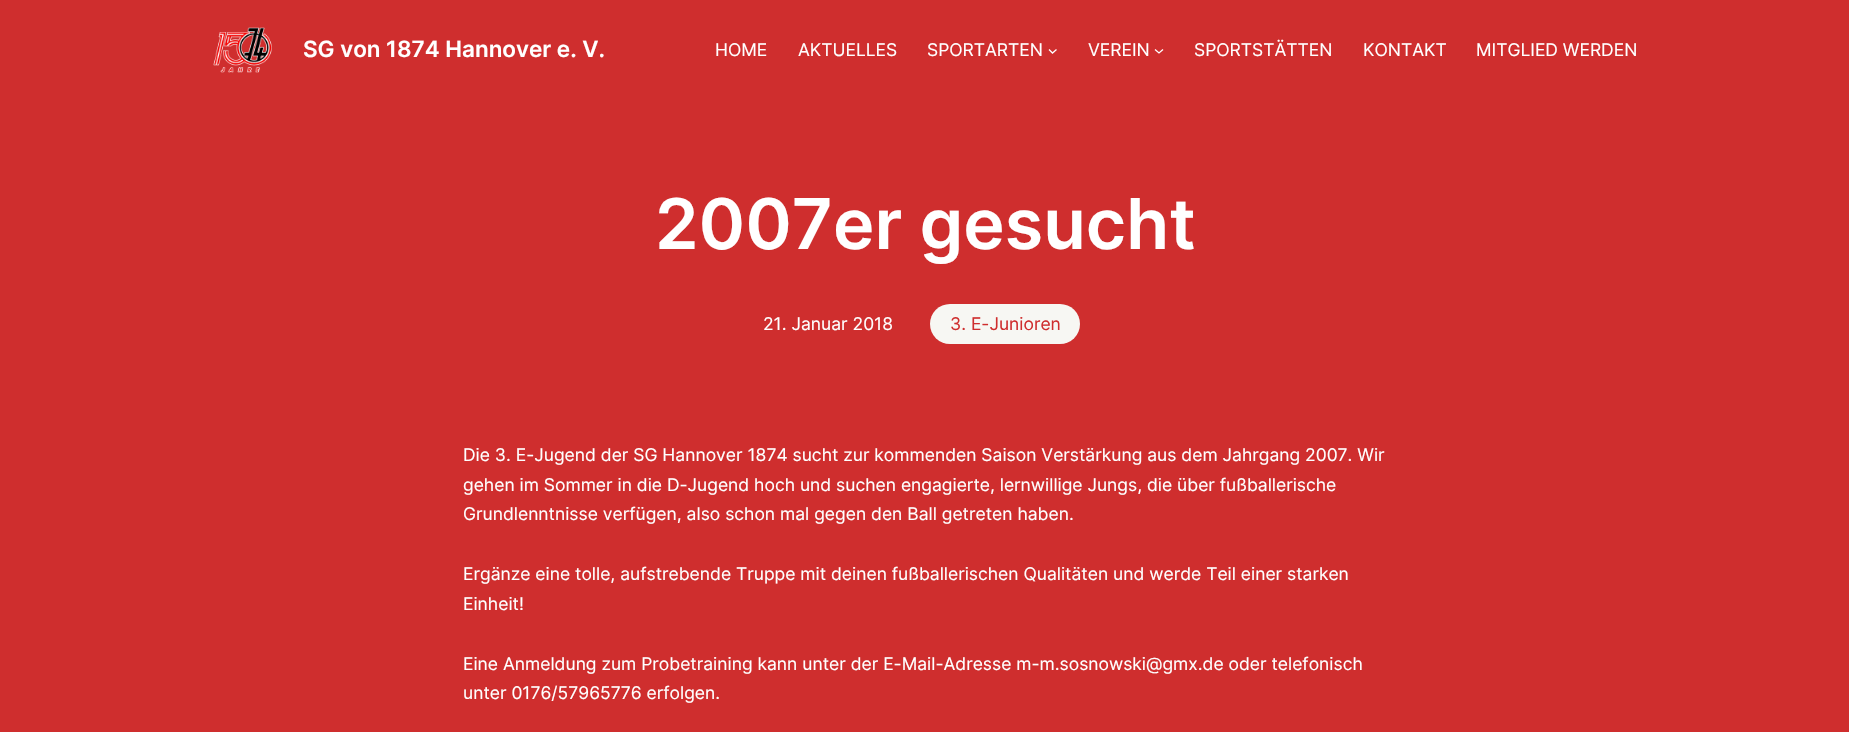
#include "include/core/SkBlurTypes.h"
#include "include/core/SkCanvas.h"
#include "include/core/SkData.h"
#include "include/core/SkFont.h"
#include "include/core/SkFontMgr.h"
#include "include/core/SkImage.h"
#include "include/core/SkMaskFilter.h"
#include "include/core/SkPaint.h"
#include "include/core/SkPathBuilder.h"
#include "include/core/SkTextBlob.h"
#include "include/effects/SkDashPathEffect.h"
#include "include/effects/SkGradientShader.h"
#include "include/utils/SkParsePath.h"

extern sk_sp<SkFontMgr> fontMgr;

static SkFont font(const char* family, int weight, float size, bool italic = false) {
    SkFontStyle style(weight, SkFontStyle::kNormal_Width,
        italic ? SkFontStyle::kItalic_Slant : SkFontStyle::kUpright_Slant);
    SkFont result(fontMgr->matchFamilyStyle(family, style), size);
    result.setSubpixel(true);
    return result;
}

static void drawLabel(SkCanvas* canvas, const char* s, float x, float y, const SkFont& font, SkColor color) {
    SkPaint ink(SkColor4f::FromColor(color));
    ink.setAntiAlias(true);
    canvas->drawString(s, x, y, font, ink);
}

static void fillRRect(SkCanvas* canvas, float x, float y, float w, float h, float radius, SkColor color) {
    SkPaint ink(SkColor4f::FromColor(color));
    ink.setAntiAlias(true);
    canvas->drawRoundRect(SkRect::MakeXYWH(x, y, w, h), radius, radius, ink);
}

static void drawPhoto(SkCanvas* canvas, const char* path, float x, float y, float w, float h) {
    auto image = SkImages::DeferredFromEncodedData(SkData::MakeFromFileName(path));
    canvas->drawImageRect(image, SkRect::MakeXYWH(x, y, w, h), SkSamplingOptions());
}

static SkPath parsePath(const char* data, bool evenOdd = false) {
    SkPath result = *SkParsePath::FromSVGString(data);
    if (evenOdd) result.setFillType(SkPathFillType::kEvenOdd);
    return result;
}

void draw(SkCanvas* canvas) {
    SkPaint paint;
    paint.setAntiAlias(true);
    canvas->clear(0xFFCF2E2E);
    drawPhoto(canvas, "assets/img1.png", 213, 27, 59, 46);
    SkFont font1 = font("Inter", 600, 22.5f);
    drawLabel(canvas, "SG von 1874 Hannover e. V.", 303, 57, font1, 0xFFFFFFFF);
    SkFont font2 = font("Inter", 400, 17.5f);
    drawLabel(canvas, "HOME", 715, 56, font2, 0xFFFFFFFF);
    drawLabel(canvas, "AKTUELLES", 798, 56, font2, 0xFFFFFFFF);
    drawLabel(canvas, "SPORTARTEN", 927, 56, font2, 0xFFFFFFFF);
    paint.setStroke(true);
    paint.setStrokeWidth(1.3f);
    paint.setColor(0xFFFFFFFF);
    canvas->drawPath(parsePath("M1049 49.5L1052.5 53L1056.5 49.5"), paint);
    drawLabel(canvas, "VEREIN", 1088, 56, font2, 0xFFFFFFFF);
    canvas->drawPath(parsePath("M1155 49.5L1159 53L1163 49.5"), paint);
    drawLabel(canvas, "SPORTSTÄTTEN", 1194, 56, font2, 0xFFFFFFFF);
    drawLabel(canvas, "KONTAKT", 1363, 56, font2, 0xFFFFFFFF);
    drawLabel(canvas, "MITGLIED WERDEN", 1476, 56, font2, 0xFFFFFFFF);
    SkFont font3 = font("Inter", 600, 70);
    drawLabel(canvas, "2007er gesucht", 655, 249, font3, 0xFFFFFFFF);
    drawLabel(canvas, "21. Januar 2018", 763, 330, font2, 0xFFFFFFFF);
    fillRRect(canvas, 930, 304, 150, 40, 20, 0xFFF7F7F3);
    drawLabel(canvas, "3. E-Junioren", 950, 330, font2, 0xFFCF2E2E);
    drawLabel(canvas, "Die 3. E-Jugend der SG Hannover 1874 sucht zur kommenden Saison Verstärkung aus dem Jahrgang 2007. Wir", 463, 461, font2, 0xFFFFFFFF);
    drawLabel(canvas, "gehen im Sommer in die D-Jugend hoch und suchen engagierte, lernwillige Jungs, die über fußballerische", 463, 491, font2, 0xFFFFFFFF);
    drawLabel(canvas, "Grundlenntnisse verfügen, also schon mal gegen den Ball getreten haben.", 463, 520, font2, 0xFFFFFFFF);
    drawLabel(canvas, "Ergänze eine tolle, aufstrebende Truppe mit deinen fußballerischen Qualitäten und werde Teil einer starken", 463, 580, font2, 0xFFFFFFFF);
    drawLabel(canvas, "Einheit!", 463, 610, font2, 0xFFFFFFFF);
    drawLabel(canvas, "Eine Anmeldung zum Probetraining kann unter der E-Mail-Adresse m-m.sosnowski@gmx.de oder telefonisch", 463, 670, font2, 0xFFFFFFFF);
    drawLabel(canvas, "unter 0176/57965776 erfolgen.", 463, 699, font2, 0xFFFFFFFF);
}
